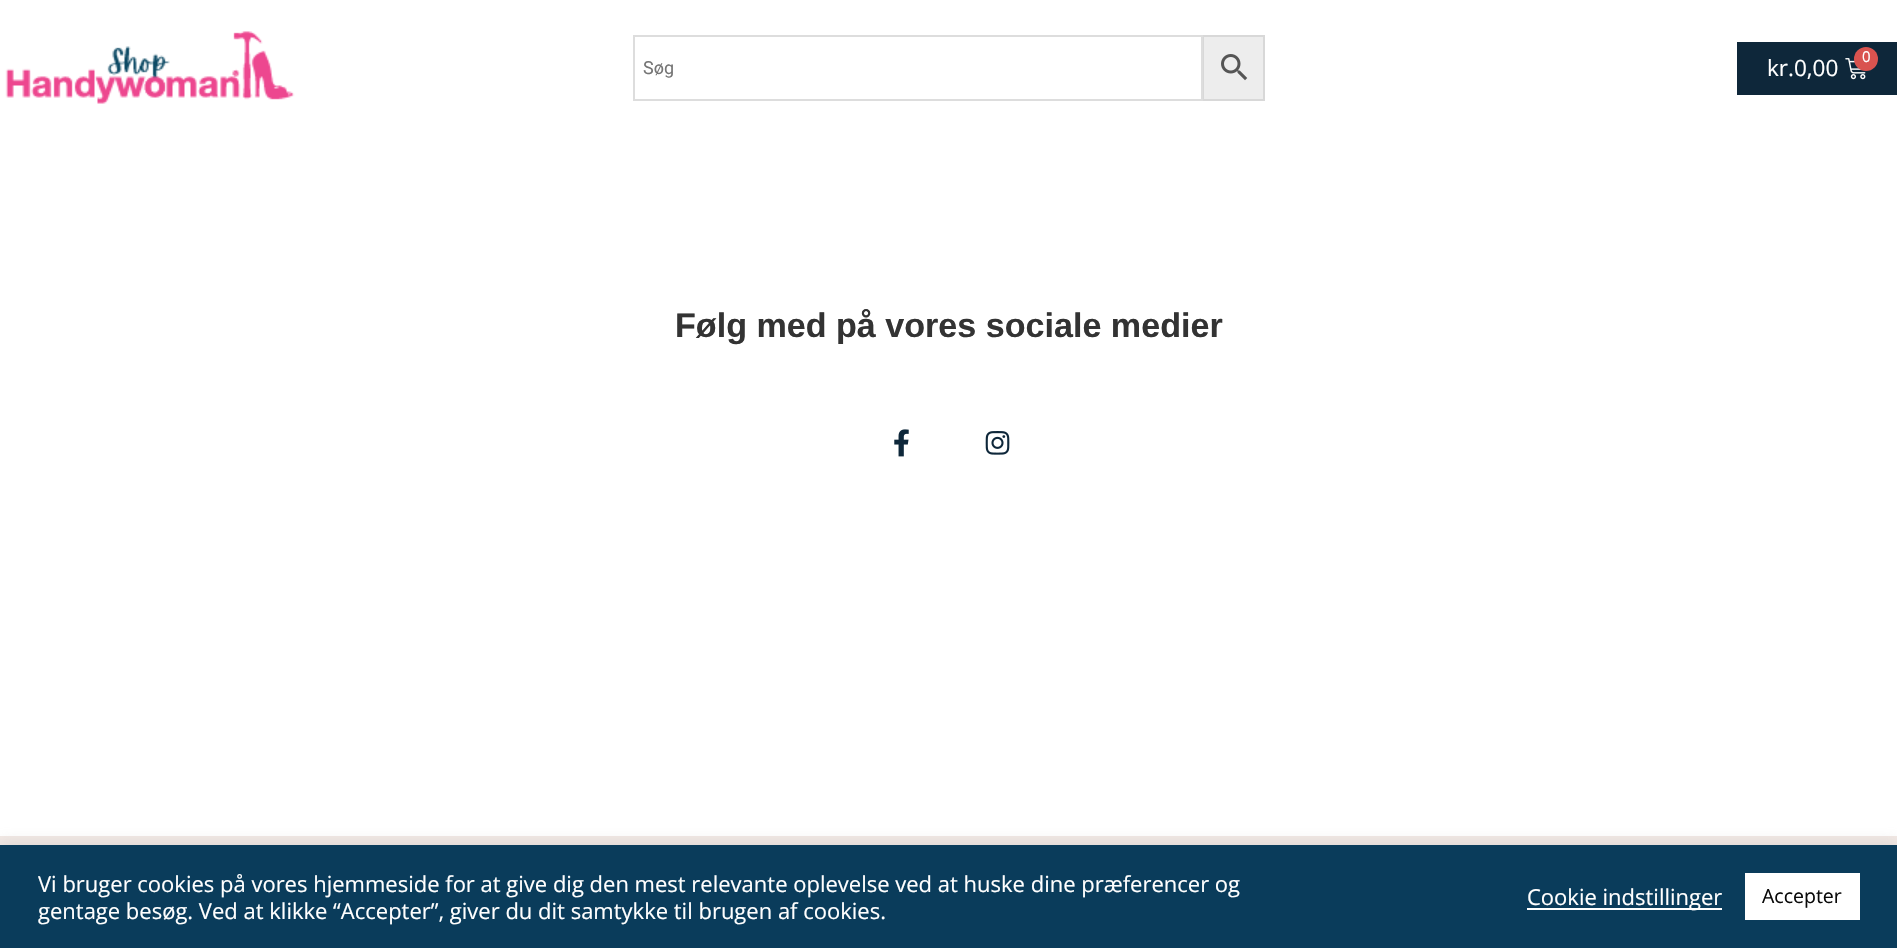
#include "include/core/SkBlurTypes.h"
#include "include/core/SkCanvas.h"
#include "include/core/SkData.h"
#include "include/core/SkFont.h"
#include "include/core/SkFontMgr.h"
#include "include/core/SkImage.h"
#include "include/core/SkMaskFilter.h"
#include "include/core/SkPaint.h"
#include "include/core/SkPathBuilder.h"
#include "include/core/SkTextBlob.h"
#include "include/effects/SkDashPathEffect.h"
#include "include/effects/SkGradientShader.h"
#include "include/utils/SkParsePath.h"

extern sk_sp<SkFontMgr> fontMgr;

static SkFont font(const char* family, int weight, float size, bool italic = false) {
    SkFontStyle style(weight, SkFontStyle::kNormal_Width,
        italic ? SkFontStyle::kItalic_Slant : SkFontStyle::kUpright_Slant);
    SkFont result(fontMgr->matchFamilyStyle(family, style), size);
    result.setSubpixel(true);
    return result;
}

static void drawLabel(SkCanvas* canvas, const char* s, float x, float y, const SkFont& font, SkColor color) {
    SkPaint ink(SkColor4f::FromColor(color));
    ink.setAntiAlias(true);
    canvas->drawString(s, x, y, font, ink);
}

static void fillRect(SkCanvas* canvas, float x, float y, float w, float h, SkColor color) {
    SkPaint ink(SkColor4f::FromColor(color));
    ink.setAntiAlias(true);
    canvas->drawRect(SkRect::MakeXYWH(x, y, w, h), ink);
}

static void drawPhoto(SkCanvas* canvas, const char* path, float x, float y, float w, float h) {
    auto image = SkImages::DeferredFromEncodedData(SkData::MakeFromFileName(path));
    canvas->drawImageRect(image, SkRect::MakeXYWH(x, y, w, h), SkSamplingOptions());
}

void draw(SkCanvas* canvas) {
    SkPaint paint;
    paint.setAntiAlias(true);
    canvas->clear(0xFFFFFFFF);
    drawPhoto(canvas, "assets/img1.png", 5, 31, 290, 73);
    paint.setColor(0xFFEDEDED);
    canvas->drawRect(SkRect::MakeXYWH(1203, 36, 61, 64), paint);
    paint.setStroke(true);
    paint.setStrokeWidth(2);
    paint.setColor(0xFFD8D8D8);
    canvas->drawRect(SkRect::MakeXYWH(1203, 36, 61, 64), paint);
    paint.setColor(0xFFDDDDDD);
    canvas->drawRect(SkRect::MakeXYWH(634, 36, 568, 64), paint);
    SkFont font1 = font("Roboto", 400, 18);
    drawLabel(canvas, "Søg", 643, 74, font1, 0xFF757575);
    drawPhoto(canvas, "assets/img2.png", 1221, 54, 27, 27);
    fillRect(canvas, 1737, 42, 160, 53, 0xFF0E273A);
    SkFont font2 = font("Open Sans", 400, 22.5f);
    drawLabel(canvas, "kr.0,00", 1767, 76, font2, 0xFFFFFFFF);
    drawPhoto(canvas, "assets/img3.png", 1845, 58, 21, 22);
    paint.setStroke(false);
    paint.setColor(0xFFD9534F);
    canvas->drawCircle(1866, 59, 12, paint);
    SkFont font3 = font("Open Sans", 400, 15);
    drawLabel(canvas, "0", 1862, 62, font3, 0xFFFFFFFF);
    SkFont font4 = font("Liberation Sans", 700, 34.1f);
    drawLabel(canvas, "Følg med på vores sociale medier", 675, 337, font4, 0xFF333333);
    drawPhoto(canvas, "assets/img4.png", 894, 429, 15, 28);
    drawPhoto(canvas, "assets/img5.png", 985, 431, 25, 24);
    fillRect(canvas, 0, 836, 1897, 9, 0xFFF1E8E4);
    paint.setColor(0x4DACABAB);
    paint.setMaskFilter(SkMaskFilter::MakeBlur(kNormal_SkBlurStyle, 7.5f));
    canvas->drawRect(SkRect::MakeXYWH(0, 843, 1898, 104), paint);
    paint.setMaskFilter(nullptr);
    fillRect(canvas, 0, 845, 1897, 103, 0xFF0A3C5B);
    SkFont font5 = font("Open Sans", 400, 22);
    drawLabel(canvas, "Vi bruger cookies på vores hjemmeside for at give dig den mest relevante oplevelse ved at huske dine præferencer og", 38, 892, font5, 0xFFFFFFFF);
    drawLabel(canvas, "gentage besøg. Ved at klikke “Accepter”, giver du dit samtykke til brugen af cookies.", 38, 919, font5, 0xFFFFFFFF);
    fillRect(canvas, 1527, 908, 195, 2, 0xFFFFFFFF);
    drawLabel(canvas, "Cookie indstillinger", 1527, 905, font5, 0xFFFFFFFF);
    fillRect(canvas, 1745, 873, 115, 47, 0xFFFFFFFF);
    SkFont font6 = font("Open Sans", 400, 19.5f);
    drawLabel(canvas, "Accepter", 1762, 903, font6, 0xFF0A0A0A);
}
